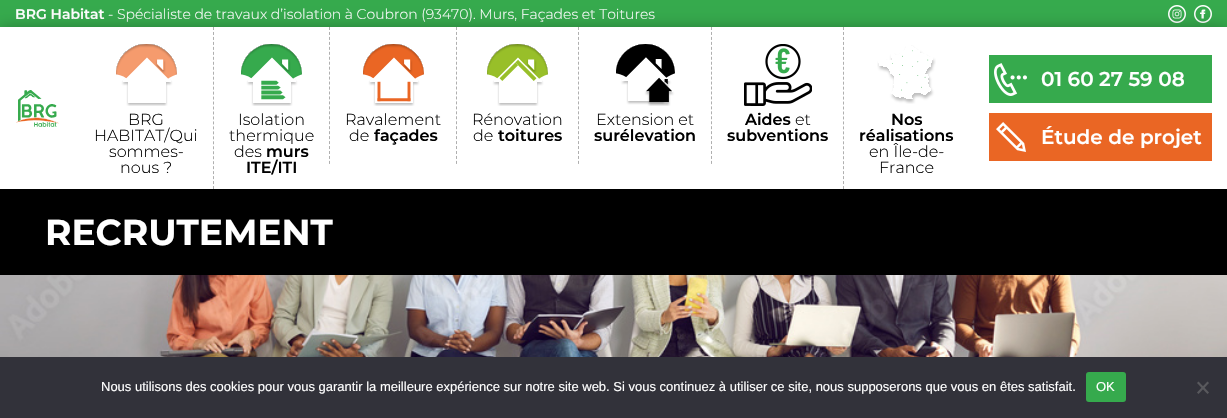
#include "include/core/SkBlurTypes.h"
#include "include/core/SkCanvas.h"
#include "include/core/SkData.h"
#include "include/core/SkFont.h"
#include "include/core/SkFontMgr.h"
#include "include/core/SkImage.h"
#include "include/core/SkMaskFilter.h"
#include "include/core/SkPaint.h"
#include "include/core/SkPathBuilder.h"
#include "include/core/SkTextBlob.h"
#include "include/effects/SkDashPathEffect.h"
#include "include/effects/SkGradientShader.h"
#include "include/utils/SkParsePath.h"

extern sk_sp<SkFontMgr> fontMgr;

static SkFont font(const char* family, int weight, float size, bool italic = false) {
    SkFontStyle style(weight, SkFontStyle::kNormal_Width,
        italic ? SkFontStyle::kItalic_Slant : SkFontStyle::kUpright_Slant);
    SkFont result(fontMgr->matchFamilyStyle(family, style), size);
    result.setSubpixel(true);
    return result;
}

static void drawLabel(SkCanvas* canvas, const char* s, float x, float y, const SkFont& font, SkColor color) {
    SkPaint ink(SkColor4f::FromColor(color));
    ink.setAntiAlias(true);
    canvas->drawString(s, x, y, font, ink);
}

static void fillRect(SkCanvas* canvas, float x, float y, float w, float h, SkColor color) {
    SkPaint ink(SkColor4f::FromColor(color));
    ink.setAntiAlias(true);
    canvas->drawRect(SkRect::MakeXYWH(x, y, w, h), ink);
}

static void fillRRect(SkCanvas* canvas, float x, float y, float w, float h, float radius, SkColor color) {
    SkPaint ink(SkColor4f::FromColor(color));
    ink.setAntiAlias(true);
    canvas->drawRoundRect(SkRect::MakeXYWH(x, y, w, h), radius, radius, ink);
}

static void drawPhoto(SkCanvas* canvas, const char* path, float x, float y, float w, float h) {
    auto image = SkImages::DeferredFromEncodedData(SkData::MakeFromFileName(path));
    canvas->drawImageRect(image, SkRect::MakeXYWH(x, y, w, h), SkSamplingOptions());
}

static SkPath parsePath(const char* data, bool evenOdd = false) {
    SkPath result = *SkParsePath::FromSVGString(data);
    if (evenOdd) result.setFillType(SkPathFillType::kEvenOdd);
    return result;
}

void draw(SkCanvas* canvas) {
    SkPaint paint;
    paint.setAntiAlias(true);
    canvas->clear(0xFF36AA4D);
    SkFont font1 = font("Montserrat", 600, 14);
    drawLabel(canvas, "BRG Habitat", 15, 19, font1, 0xFFFFFFFF);
    SkFont font2 = font("Montserrat", 300, 14);
    drawLabel(canvas, "- Spécialiste de travaux d’isolation à Coubron (93470). Murs, Façades et Toitures", 108, 19, font2, 0xFFFFFFFF);
    drawPhoto(canvas, "assets/img1.png", 1168, 5, 18, 18);
    drawPhoto(canvas, "assets/img2.png", 1194, 5, 18, 18);
    fillRect(canvas, 0, 189, 1227, 86, 0xFF000000);
    paint.setColor(0x4D000000);
    paint.setMaskFilter(SkMaskFilter::MakeBlur(kNormal_SkBlurStyle, 7.5f));
    canvas->drawRect(SkRect::MakeXYWH(0, 28, 1227, 162), paint);
    paint.setMaskFilter(nullptr);
    fillRect(canvas, 0, 27, 1227, 162, 0xFFFFFFFF);
    drawPhoto(canvas, "assets/img3.png", 16, 90, 43, 37);
    drawPhoto(canvas, "assets/img4.png", 116, 44, 61, 62);
    SkFont font3 = font("Montserrat", 300, 16);
    drawLabel(canvas, "BRG", 128, 125, font3, 0xFF000000);
    drawLabel(canvas, "HABITAT/Qui", 94, 141, font3, 0xFF000000);
    drawLabel(canvas, "sommes-", 109, 157, font3, 0xFF000000);
    drawLabel(canvas, "nous ?", 120, 173, font3, 0xFF000000);
    paint.setStroke(true);
    paint.setStrokeWidth(1);
    paint.setColor(0xFFAFAFAF);
    paint.setPathEffect(SkDashPathEffect::Make({{3, 1.97f}}, 0));
    canvas->drawPath(parsePath("M213.5 27V189"), paint);
    paint.setPathEffect(nullptr);
    drawPhoto(canvas, "assets/img5.png", 241, 44, 61, 62);
    drawLabel(canvas, "Isolation", 238, 125, font3, 0xFF000000);
    drawLabel(canvas, "thermique", 229, 141, font3, 0xFF000000);
    drawLabel(canvas, "des", 234, 157, font3, 0xFF000000);
    SkFont font4 = font("Montserrat", 600, 16);
    drawLabel(canvas, "murs", 266, 157, font4, 0xFF000000);
    drawLabel(canvas, "ITE/ITI", 246, 173, font4, 0xFF000000);
    paint.setPathEffect(SkDashPathEffect::Make({{3, 1.96f}}, 0));
    canvas->drawPath(parsePath("M329.5 27V164"), paint);
    paint.setPathEffect(nullptr);
    drawPhoto(canvas, "assets/img6.png", 363, 44, 61, 62);
    drawLabel(canvas, "Ravalement", 345, 125, font3, 0xFF000000);
    drawLabel(canvas, "de", 349, 141, font3, 0xFF000000);
    drawLabel(canvas, "façades", 374, 141, font4, 0xFF000000);
    paint.setPathEffect(SkDashPathEffect::Make({{3, 1.96f}}, 0));
    canvas->drawPath(parsePath("M456.5 27V164"), paint);
    paint.setPathEffect(nullptr);
    drawPhoto(canvas, "assets/img7.png", 487, 44, 61, 62);
    drawLabel(canvas, "Rénovation", 472, 125, font3, 0xFF000000);
    drawLabel(canvas, "de", 473, 141, font3, 0xFF000000);
    drawLabel(canvas, "toitures", 498, 141, font4, 0xFF000000);
    paint.setPathEffect(SkDashPathEffect::Make({{3, 1.96f}}, 0));
    canvas->drawPath(parsePath("M578.5 27V164"), paint);
    paint.setPathEffect(nullptr);
    drawPhoto(canvas, "assets/img8.png", 616, 44, 59, 62);
    drawLabel(canvas, "Extension et", 596, 125, font3, 0xFF000000);
    drawLabel(canvas, "surélevation", 594, 141, font4, 0xFF000000);
    paint.setPathEffect(SkDashPathEffect::Make({{3, 1.96f}}, 0));
    canvas->drawPath(parsePath("M711.5 27V164"), paint);
    paint.setPathEffect(nullptr);
    drawPhoto(canvas, "assets/img9.png", 744, 44, 68, 62);
    drawLabel(canvas, "Aides", 745, 125, font4, 0xFF000000);
    drawLabel(canvas, "et", 795, 125, font3, 0xFF000000);
    drawLabel(canvas, "subventions", 727, 141, font4, 0xFF000000);
    paint.setPathEffect(SkDashPathEffect::Make({{3, 1.97f}}, 0));
    canvas->drawPath(parsePath("M843.5 27V189"), paint);
    paint.setPathEffect(nullptr);
    drawPhoto(canvas, "assets/img10.png", 877, 45, 59, 59);
    drawLabel(canvas, "Nos", 891, 125, font4, 0xFF000000);
    drawLabel(canvas, "réalisations", 859, 141, font4, 0xFF000000);
    drawLabel(canvas, "en Île-de-", 869, 157, font3, 0xFF000000);
    drawLabel(canvas, "France", 879, 173, font3, 0xFF000000);
    fillRect(canvas, 989, 55, 223, 48, 0xFF36AA4D);
    drawPhoto(canvas, "assets/img11.png", 994, 63, 33, 33);
    SkFont font5 = font("Montserrat", 600, 20);
    drawLabel(canvas, "01 60 27 59 08", 1041, 86, font5, 0xFFFFFFFF);
    fillRect(canvas, 989, 113, 223, 48, 0xFFEA6624);
    drawPhoto(canvas, "assets/img12.png", 996, 122, 30, 30);
    drawLabel(canvas, "Étude de projet", 1041, 144, font5, 0xFFFFFFFF);
    SkFont font6 = font("Montserrat", 700, 36);
    drawLabel(canvas, "RECRUTEMENT", 45, 245, font6, 0xFFFFFFFF);
    drawPhoto(canvas, "assets/img13.png", 0, 275, 1227, 82);
    fillRect(canvas, 0, 357, 1227, 61, 0xFF32323A);
    SkFont font7 = font("Liberation Sans", 400, 13);
    drawLabel(canvas, "Nous utilisons des cookies pour vous garantir la meilleure expérience sur notre site web. Si vous continuez à utiliser ce site, nous supposerons que vous en êtes satisfait.", 101, 391, font7, 0xFFFFFFFF);
    fillRRect(canvas, 1086, 372, 40, 30, 3, 0xFF36AA4D);
    drawLabel(canvas, "OK", 1096, 391, font7, 0xFFFFFFFF);
    paint.setStroke(false);
    paint.setColor(0xFF59595D);
    canvas->drawPath(parsePath("M1207.5 381.5L1209 383L1198.5 394L1197 392.5Z"), paint);
    canvas->drawPath(parsePath("M1197 383L1198.5 381.5L1209 392.5L1207.5 394Z"), paint);
}
